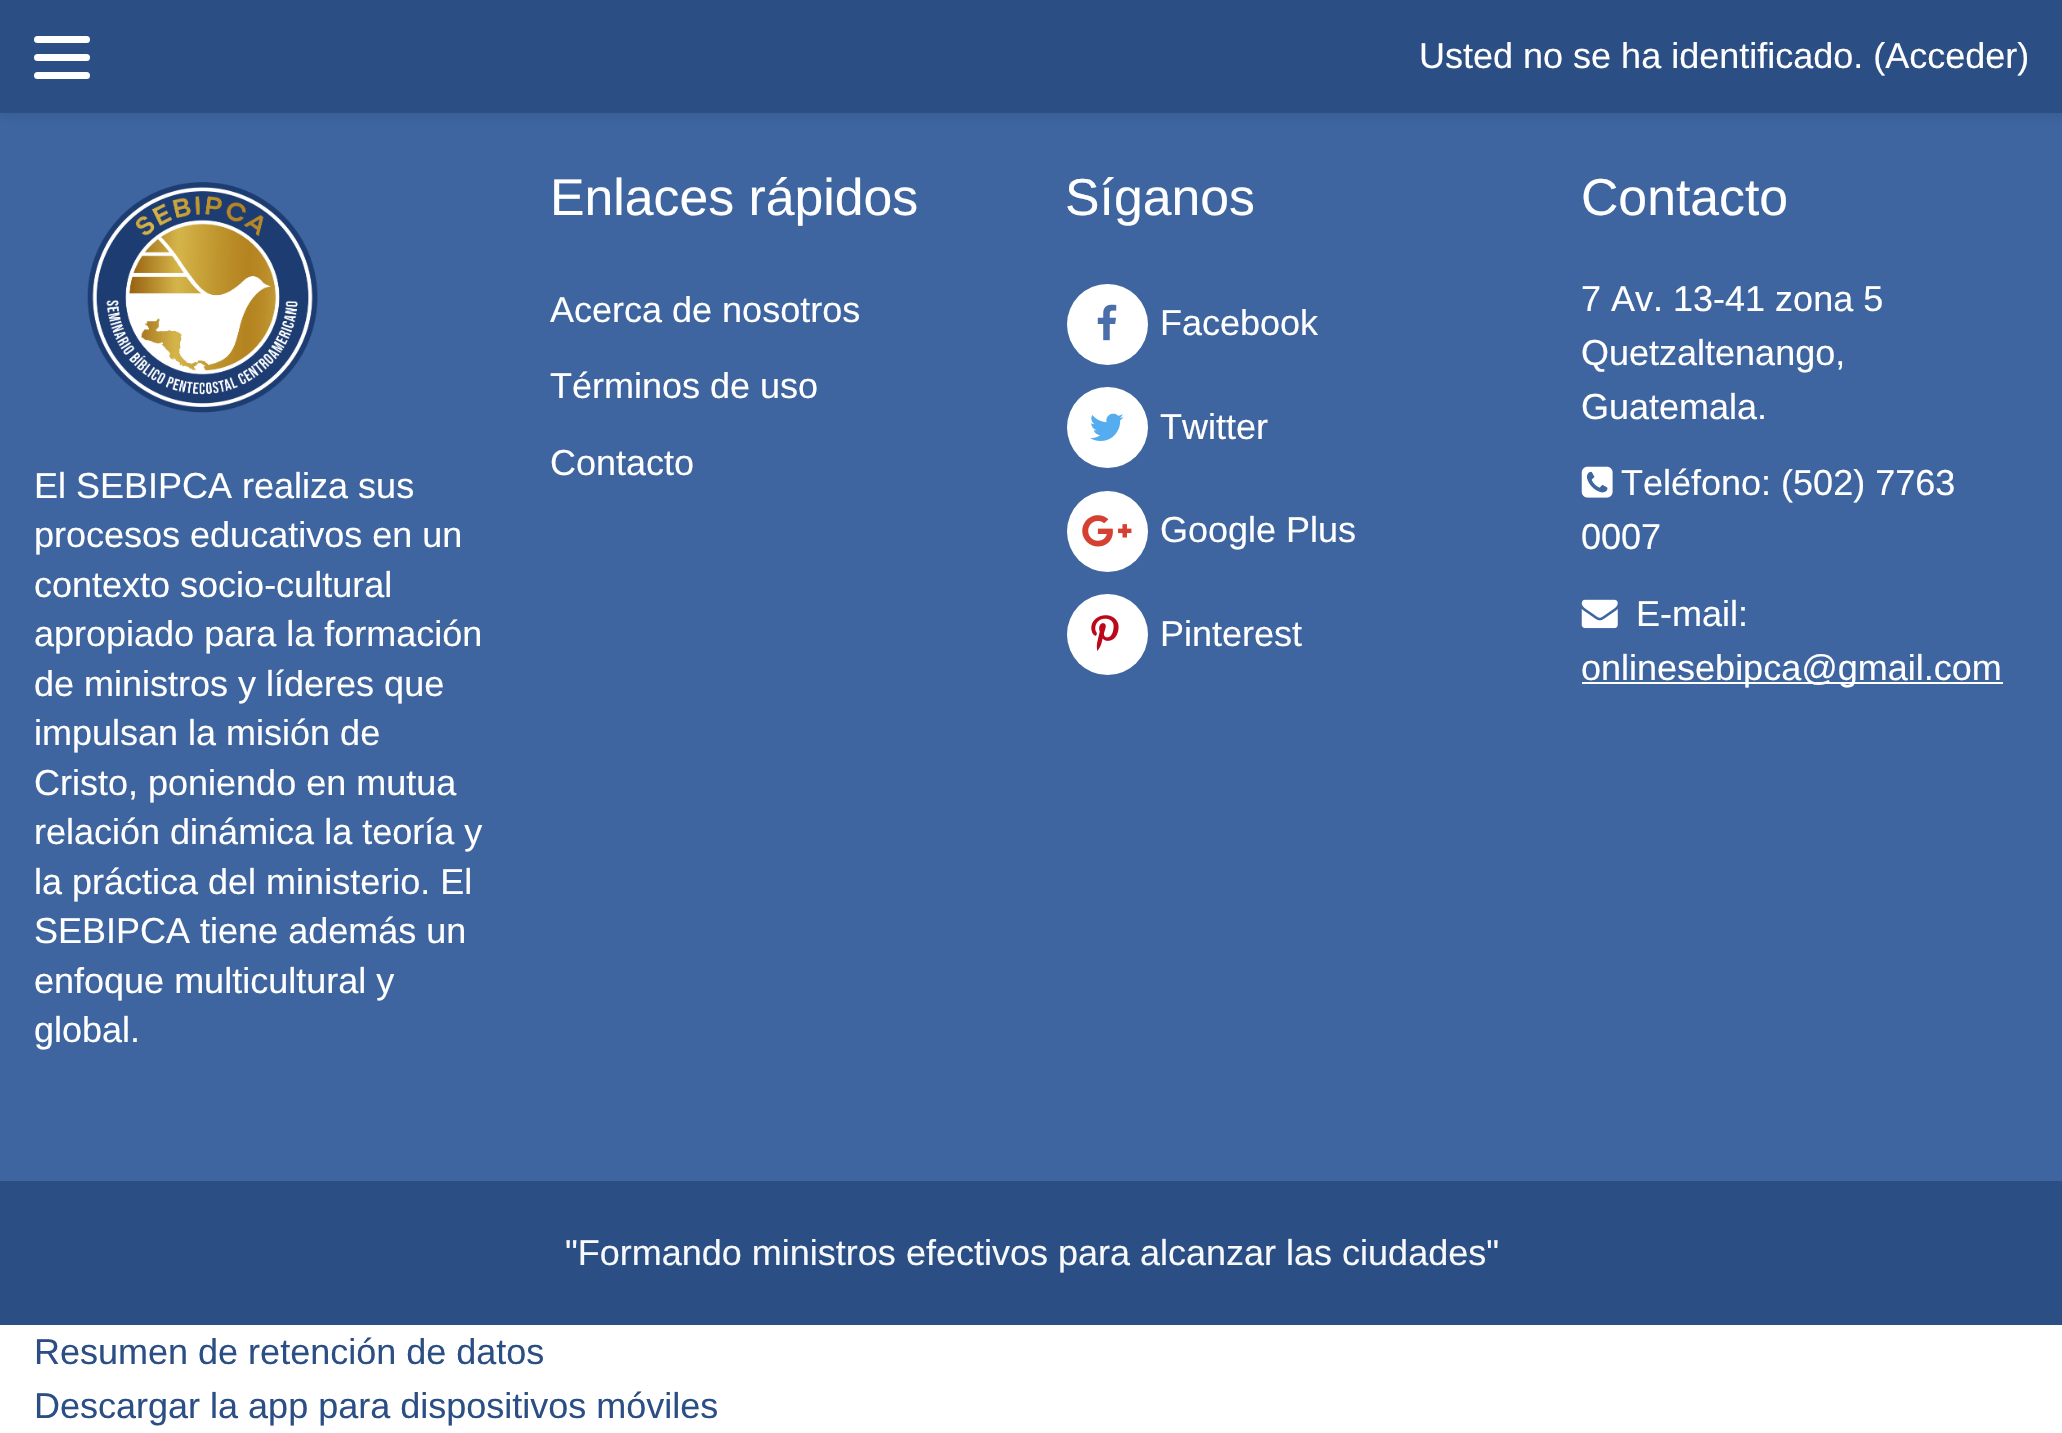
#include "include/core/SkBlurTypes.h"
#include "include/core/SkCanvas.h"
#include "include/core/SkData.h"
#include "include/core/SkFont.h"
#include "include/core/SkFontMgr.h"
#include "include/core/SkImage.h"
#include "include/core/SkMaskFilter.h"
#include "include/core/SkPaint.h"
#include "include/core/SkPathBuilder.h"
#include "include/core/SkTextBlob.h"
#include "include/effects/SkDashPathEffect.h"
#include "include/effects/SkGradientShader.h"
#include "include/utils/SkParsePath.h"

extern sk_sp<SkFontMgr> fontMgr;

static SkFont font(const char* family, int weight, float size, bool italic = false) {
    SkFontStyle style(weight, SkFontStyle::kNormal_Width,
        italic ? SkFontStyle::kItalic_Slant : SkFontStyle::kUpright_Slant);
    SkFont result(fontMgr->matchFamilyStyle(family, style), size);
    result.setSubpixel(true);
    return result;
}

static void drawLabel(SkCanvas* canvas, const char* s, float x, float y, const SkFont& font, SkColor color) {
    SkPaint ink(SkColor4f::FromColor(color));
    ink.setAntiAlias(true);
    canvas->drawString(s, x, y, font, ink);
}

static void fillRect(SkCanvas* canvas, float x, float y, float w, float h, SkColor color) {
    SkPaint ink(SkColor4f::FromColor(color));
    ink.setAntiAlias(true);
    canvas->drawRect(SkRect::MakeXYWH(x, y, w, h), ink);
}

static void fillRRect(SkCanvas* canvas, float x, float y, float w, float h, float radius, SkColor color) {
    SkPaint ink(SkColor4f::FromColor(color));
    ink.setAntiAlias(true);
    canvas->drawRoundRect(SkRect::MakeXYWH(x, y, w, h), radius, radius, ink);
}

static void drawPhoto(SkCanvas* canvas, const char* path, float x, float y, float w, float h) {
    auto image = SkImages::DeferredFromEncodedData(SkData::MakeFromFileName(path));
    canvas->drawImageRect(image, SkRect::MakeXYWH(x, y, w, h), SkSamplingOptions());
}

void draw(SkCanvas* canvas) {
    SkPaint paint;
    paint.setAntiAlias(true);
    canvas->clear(0xFFFFFFFF);
    fillRect(canvas, 0, 113, 2062, 1068, 0xFF3E65A0);
    paint.setColor(0x14000000);
    paint.setMaskFilter(SkMaskFilter::MakeBlur(kNormal_SkBlurStyle, 4.5f));
    canvas->drawRect(SkRect::MakeXYWH(0, 5, 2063, 112), paint);
    paint.setMaskFilter(nullptr);
    fillRect(canvas, 0, 0, 2062, 113, 0xFF2B4E84);
    fillRRect(canvas, 34, 36, 56, 7, 3.5f, 0xFFFFFFFF);
    fillRRect(canvas, 34, 54, 56, 7, 3.5f, 0xFFFFFFFF);
    fillRRect(canvas, 34, 72, 56, 7, 3.5f, 0xFFFFFFFF);
    SkFont font1 = font("Liberation Sans", 400, 36);
    drawLabel(canvas, "Usted no se ha identificado. (Acceder)", 1419, 68, font1, 0xFFFFFFFF);
    drawPhoto(canvas, "assets/img1.png", 87, 182, 231, 231);
    drawLabel(canvas, "El SEBIPCA realiza sus", 34, 498, font1, 0xFFFFFFFF);
    drawLabel(canvas, "procesos educativos en un", 34, 547, font1, 0xFFFFFFFF);
    drawLabel(canvas, "contexto socio-cultural", 34, 597, font1, 0xFFFFFFFF);
    drawLabel(canvas, "apropiado para la formación", 34, 646, font1, 0xFFFFFFFF);
    drawLabel(canvas, "de ministros y líderes que", 34, 696, font1, 0xFFFFFFFF);
    drawLabel(canvas, "impulsan la misión de", 34, 745, font1, 0xFFFFFFFF);
    drawLabel(canvas, "Cristo, poniendo en mutua", 34, 795, font1, 0xFFFFFFFF);
    drawLabel(canvas, "relación dinámica la teoría y", 34, 844, font1, 0xFFFFFFFF);
    drawLabel(canvas, "la práctica del ministerio. El", 34, 894, font1, 0xFFFFFFFF);
    drawLabel(canvas, "SEBIPCA tiene además un", 34, 943, font1, 0xFFFFFFFF);
    drawLabel(canvas, "enfoque multicultural y", 34, 993, font1, 0xFFFFFFFF);
    drawLabel(canvas, "global.", 34, 1042, font1, 0xFFFFFFFF);
    SkFont font2 = font("Liberation Sans", 400, 51.75f);
    drawLabel(canvas, "Enlaces rápidos", 550, 215, font2, 0xFFFFFFFF);
    drawLabel(canvas, "Acerca de nosotros", 550, 322, font1, 0xFFFFFFFF);
    drawLabel(canvas, "Términos de uso", 550, 398, font1, 0xFFFFFFFF);
    drawLabel(canvas, "Contacto", 550, 475, font1, 0xFFFFFFFF);
    drawLabel(canvas, "Síganos", 1065, 215, font2, 0xFFFFFFFF);
    paint.setColor(0xFFFFFFFF);
    canvas->drawCircle(1107.5f, 324.5f, 40.5f, paint);
    drawPhoto(canvas, "assets/img2.png", 1097, 304, 20, 37);
    drawLabel(canvas, "Facebook", 1160, 335, font1, 0xFFFFFFFF);
    canvas->drawCircle(1107.5f, 427.5f, 40.5f, paint);
    drawPhoto(canvas, "assets/img3.png", 1090, 413, 34, 28);
    drawLabel(canvas, "Twitter", 1160, 439, font1, 0xFFFFFFFF);
    canvas->drawCircle(1107.5f, 531.5f, 40.5f, paint);
    drawPhoto(canvas, "assets/img4.png", 1082, 515, 50, 32);
    drawLabel(canvas, "Google Plus", 1160, 542, font1, 0xFFFFFFFF);
    canvas->drawCircle(1107.5f, 634.5f, 40.5f, paint);
    drawPhoto(canvas, "assets/img5.png", 1091, 615, 28, 36);
    drawLabel(canvas, "Pinterest", 1160, 646, font1, 0xFFFFFFFF);
    drawLabel(canvas, "Contacto", 1581, 215, font2, 0xFFFFFFFF);
    drawLabel(canvas, "7 Av. 13-41 zona 5", 1581, 311, font1, 0xFFFFFFFF);
    drawLabel(canvas, "Quetzaltenango,", 1581, 365, font1, 0xFFFFFFFF);
    drawLabel(canvas, "Guatemala.", 1581, 419, font1, 0xFFFFFFFF);
    drawPhoto(canvas, "assets/img6.png", 1581, 466, 32, 32);
    drawLabel(canvas, "Teléfono: (502) 7763", 1621, 495, font1, 0xFFFFFFFF);
    drawLabel(canvas, "0007", 1581, 549, font1, 0xFFFFFFFF);
    drawPhoto(canvas, "assets/img7.png", 1581, 599, 37, 30);
    drawLabel(canvas, "E-mail:", 1636, 626, font1, 0xFFFFFFFF);
    fillRect(canvas, 1582, 682, 421, 2, 0xFFFFFFFF);
    drawLabel(canvas, "onlinesebipca@gmail.com", 1581, 680, font1, 0xFFFFFFFF);
    fillRect(canvas, 0, 1181, 2062, 144, 0xFF2B4E84);
    drawLabel(canvas, "\"Formando ministros efectivos para alcanzar las ciudades\"", 565, 1265, font1, 0xFFF8F9FA);
    drawLabel(canvas, "Resumen de retención de datos", 34, 1364, font1, 0xFF2B4E84);
    drawLabel(canvas, "Descargar la app para dispositivos móviles", 34, 1418, font1, 0xFF2B4E84);
}
